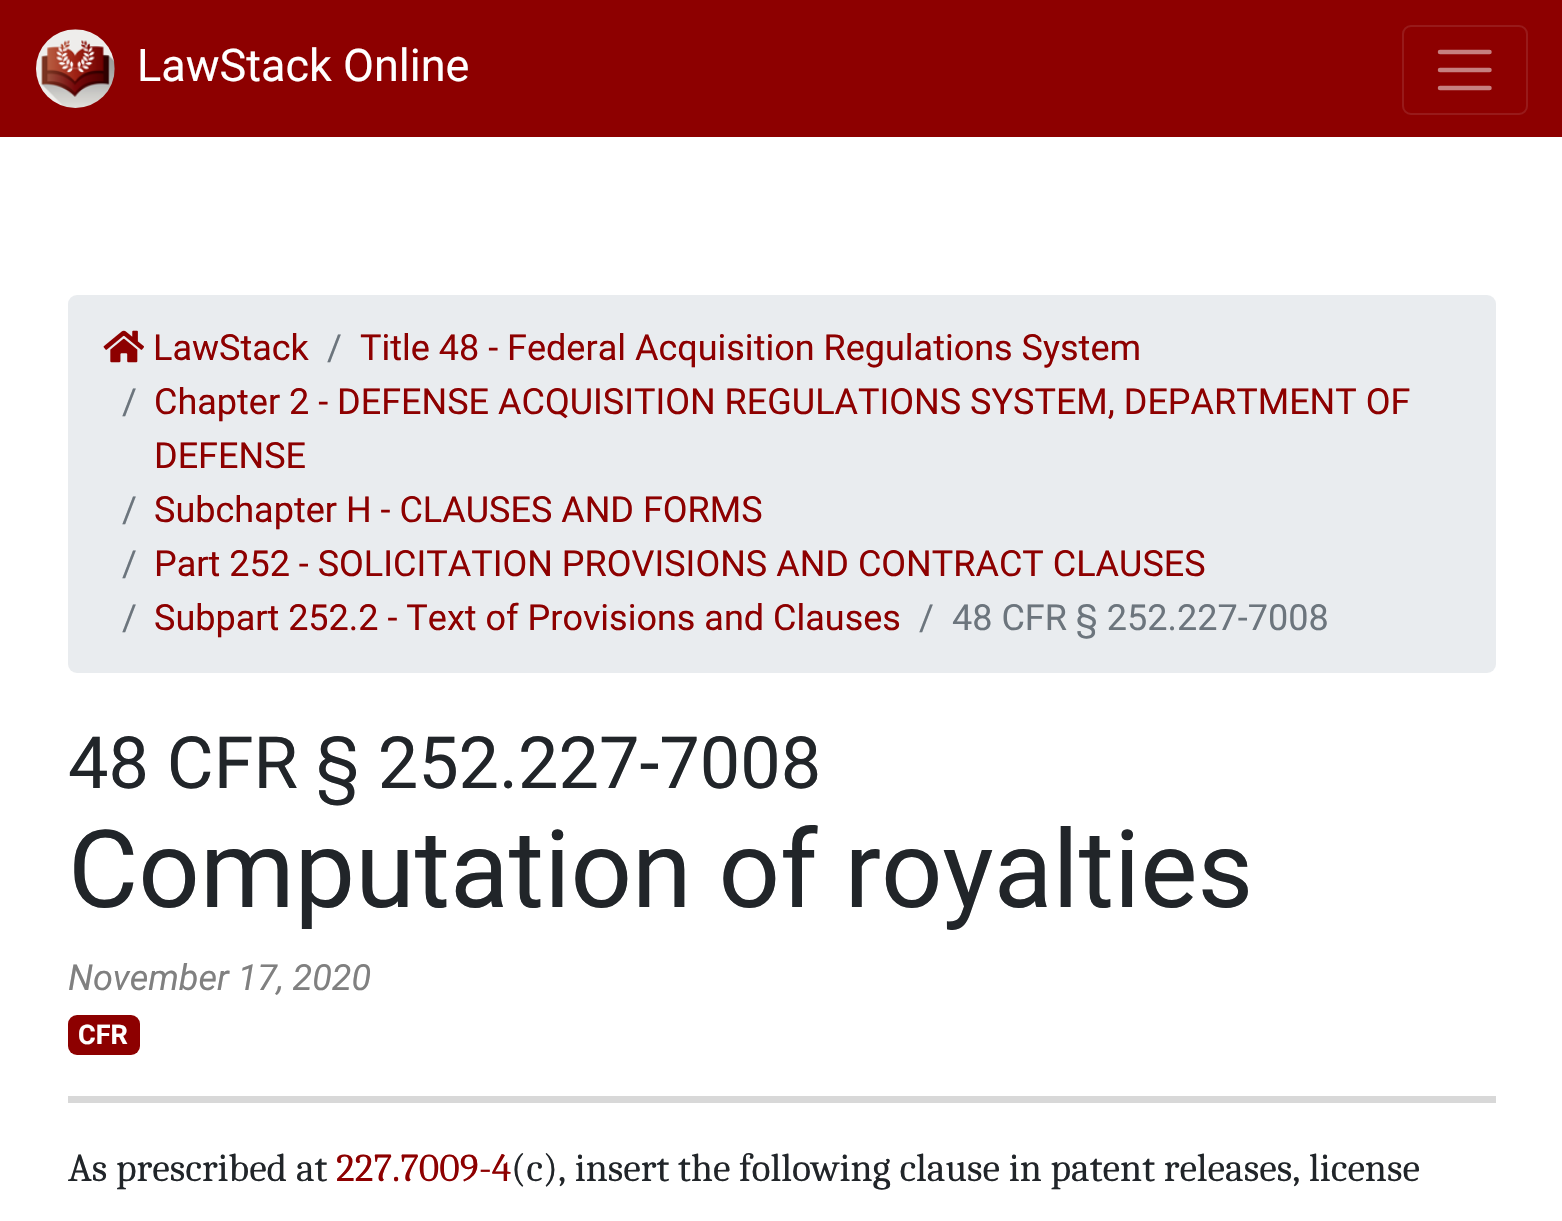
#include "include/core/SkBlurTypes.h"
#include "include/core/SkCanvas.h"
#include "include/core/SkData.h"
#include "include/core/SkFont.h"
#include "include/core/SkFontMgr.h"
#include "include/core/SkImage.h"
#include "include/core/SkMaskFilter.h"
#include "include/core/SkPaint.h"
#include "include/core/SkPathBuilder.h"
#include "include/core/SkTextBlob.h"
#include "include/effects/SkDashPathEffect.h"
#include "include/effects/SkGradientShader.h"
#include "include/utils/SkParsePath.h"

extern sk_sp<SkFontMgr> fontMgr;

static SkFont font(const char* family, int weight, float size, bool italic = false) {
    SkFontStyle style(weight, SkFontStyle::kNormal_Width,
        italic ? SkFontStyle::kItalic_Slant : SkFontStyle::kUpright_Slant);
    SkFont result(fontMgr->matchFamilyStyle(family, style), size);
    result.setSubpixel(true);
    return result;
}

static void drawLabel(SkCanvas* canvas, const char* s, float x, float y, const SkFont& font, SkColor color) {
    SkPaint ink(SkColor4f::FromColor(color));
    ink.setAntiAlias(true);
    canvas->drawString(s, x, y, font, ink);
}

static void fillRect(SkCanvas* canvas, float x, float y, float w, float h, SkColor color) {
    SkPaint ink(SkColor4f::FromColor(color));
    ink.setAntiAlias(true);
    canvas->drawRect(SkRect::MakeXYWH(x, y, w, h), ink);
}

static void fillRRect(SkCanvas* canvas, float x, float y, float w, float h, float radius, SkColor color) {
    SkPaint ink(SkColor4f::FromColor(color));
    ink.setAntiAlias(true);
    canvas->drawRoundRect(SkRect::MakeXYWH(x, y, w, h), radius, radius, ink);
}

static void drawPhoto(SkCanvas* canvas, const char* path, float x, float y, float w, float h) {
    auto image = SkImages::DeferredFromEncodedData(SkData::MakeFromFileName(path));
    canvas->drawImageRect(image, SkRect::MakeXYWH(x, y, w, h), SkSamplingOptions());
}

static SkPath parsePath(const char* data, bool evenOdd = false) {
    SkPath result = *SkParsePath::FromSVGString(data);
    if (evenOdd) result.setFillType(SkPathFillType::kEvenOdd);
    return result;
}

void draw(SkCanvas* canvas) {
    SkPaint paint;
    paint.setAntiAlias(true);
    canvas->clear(0xFFFFFFFF);
    fillRect(canvas, 0, 0, 1562, 137, 0xFF8D0000);
    drawPhoto(canvas, "assets/img1.png", 36, 29, 79, 79);
    SkFont font1 = font("Roboto", 400, 45);
    drawLabel(canvas, "LawStack Online", 137, 81, font1, 0xFFFFFFFF);
    paint.setStroke(true);
    paint.setStrokeWidth(2);
    paint.setColor(0xFF981A1A);
    canvas->drawRoundRect(SkRect::MakeXYWH(1403, 26, 124, 88), 8, 8, paint);
    paint.setStrokeWidth(4.5f);
    paint.setStrokeCap(SkPaint::kRound_Cap);
    paint.setColor(0xFFC68080);
    canvas->drawPath(parsePath("M1440 52H1489.5M1440 70H1489.5M1440 88H1489.5"), paint);
    fillRect(canvas, 68, 1096, 1428, 7, 0xFFD8D8D8);
    fillRRect(canvas, 68, 295, 1428, 378, 9, 0xFFE9ECEF);
    drawPhoto(canvas, "assets/img2.png", 103, 330, 41, 33);
    SkFont font2 = font("Roboto", 400, 36);
    drawLabel(canvas, "LawStack", 153, 360, font2, 0xFF8D0000);
    drawLabel(canvas, "/", 327, 360, font2, 0xFF6C757D);
    drawLabel(canvas, "Title 48 - Federal Acquisition Regulations System", 360, 360, font2, 0xFF8D0000);
    drawLabel(canvas, "/", 122, 414, font2, 0xFF6C757D);
    drawLabel(canvas, "Chapter 2 - DEFENSE ACQUISITION REGULATIONS SYSTEM, DEPARTMENT OF", 154, 414, font2, 0xFF8D0000);
    drawLabel(canvas, "DEFENSE", 154, 468, font2, 0xFF8D0000);
    drawLabel(canvas, "/", 122, 522, font2, 0xFF6C757D);
    drawLabel(canvas, "Subchapter H - CLAUSES AND FORMS", 154, 522, font2, 0xFF8D0000);
    drawLabel(canvas, "/", 122, 576, font2, 0xFF6C757D);
    drawLabel(canvas, "Part 252 - SOLICITATION PROVISIONS AND CONTRACT CLAUSES", 154, 576, font2, 0xFF8D0000);
    drawLabel(canvas, "/", 122, 630, font2, 0xFF6C757D);
    drawLabel(canvas, "Subpart 252.2 - Text of Provisions and Clauses", 154, 630, font2, 0xFF8D0000);
    drawLabel(canvas, "/", 919, 630, font2, 0xFF6C757D);
    drawLabel(canvas, "48 CFR § 252.227-7008", 952, 630, font2, 0xFF6C757D);
    SkFont font3 = font("Roboto", 400, 72);
    drawLabel(canvas, "48 CFR § 252.227-7008", 68, 788, font3, 0xFF212529);
    SkFont font4 = font("Roboto", 400, 108);
    drawLabel(canvas, "Computation of royalties", 68, 907, font4, 0xFF212529);
    SkFont font5 = font("Roboto", 400, 36, true);
    drawLabel(canvas, "November 17, 2020", 68, 990, font5, 0xFF808080);
    fillRRect(canvas, 68, 1015, 72, 40, 9, 0xFF8D0000);
    SkFont font6 = font("Roboto", 700, 27);
    drawLabel(canvas, "CFR", 78, 1044, font6, 0xFFFFFFFF);
    SkFont font7 = font("Caladea", 400, 39.6f);
    drawLabel(canvas, "As prescribed at", 68, 1181, font7, 0xFF212529);
    drawLabel(canvas, "227.7009-4", 336, 1181, font7, 0xFF8D0000);
    drawLabel(canvas, "(c), insert the following clause in patent releases, license", 511, 1181, font7, 0xFF212529);
}
